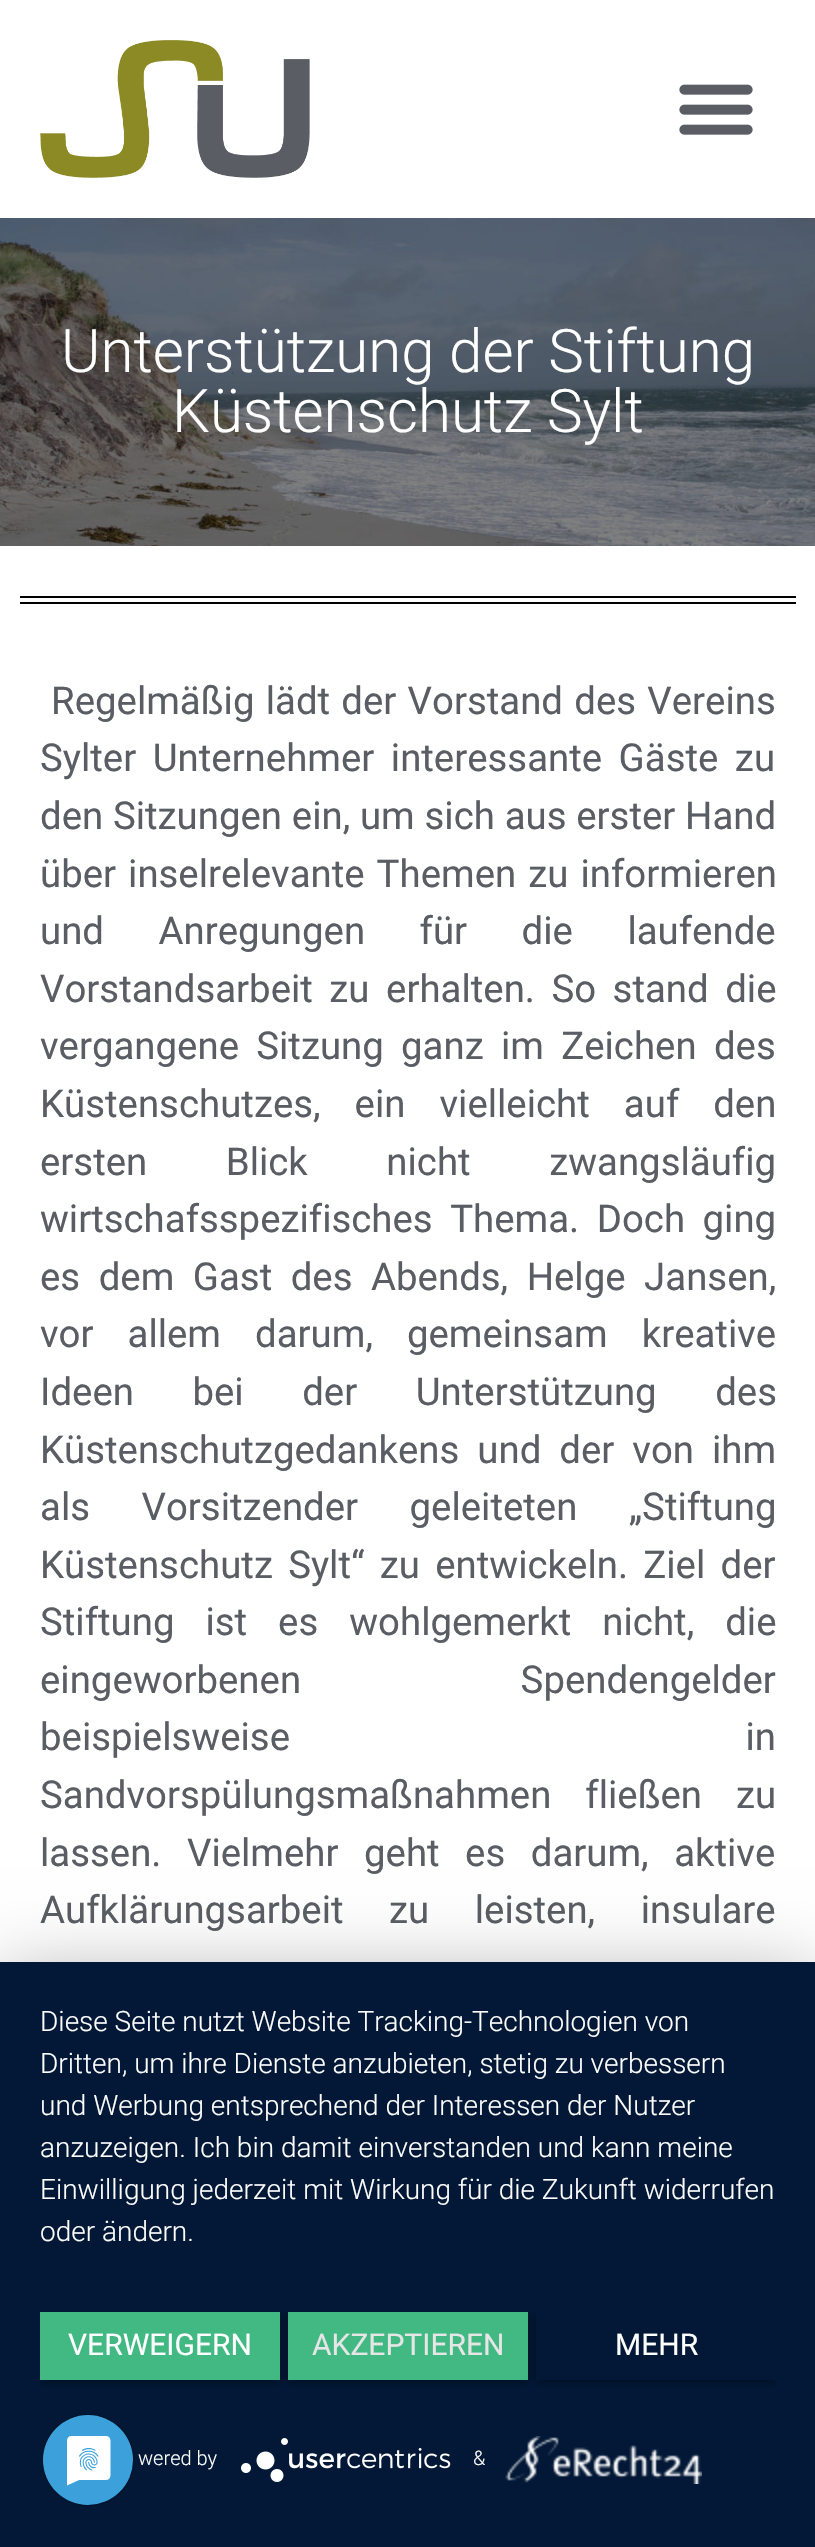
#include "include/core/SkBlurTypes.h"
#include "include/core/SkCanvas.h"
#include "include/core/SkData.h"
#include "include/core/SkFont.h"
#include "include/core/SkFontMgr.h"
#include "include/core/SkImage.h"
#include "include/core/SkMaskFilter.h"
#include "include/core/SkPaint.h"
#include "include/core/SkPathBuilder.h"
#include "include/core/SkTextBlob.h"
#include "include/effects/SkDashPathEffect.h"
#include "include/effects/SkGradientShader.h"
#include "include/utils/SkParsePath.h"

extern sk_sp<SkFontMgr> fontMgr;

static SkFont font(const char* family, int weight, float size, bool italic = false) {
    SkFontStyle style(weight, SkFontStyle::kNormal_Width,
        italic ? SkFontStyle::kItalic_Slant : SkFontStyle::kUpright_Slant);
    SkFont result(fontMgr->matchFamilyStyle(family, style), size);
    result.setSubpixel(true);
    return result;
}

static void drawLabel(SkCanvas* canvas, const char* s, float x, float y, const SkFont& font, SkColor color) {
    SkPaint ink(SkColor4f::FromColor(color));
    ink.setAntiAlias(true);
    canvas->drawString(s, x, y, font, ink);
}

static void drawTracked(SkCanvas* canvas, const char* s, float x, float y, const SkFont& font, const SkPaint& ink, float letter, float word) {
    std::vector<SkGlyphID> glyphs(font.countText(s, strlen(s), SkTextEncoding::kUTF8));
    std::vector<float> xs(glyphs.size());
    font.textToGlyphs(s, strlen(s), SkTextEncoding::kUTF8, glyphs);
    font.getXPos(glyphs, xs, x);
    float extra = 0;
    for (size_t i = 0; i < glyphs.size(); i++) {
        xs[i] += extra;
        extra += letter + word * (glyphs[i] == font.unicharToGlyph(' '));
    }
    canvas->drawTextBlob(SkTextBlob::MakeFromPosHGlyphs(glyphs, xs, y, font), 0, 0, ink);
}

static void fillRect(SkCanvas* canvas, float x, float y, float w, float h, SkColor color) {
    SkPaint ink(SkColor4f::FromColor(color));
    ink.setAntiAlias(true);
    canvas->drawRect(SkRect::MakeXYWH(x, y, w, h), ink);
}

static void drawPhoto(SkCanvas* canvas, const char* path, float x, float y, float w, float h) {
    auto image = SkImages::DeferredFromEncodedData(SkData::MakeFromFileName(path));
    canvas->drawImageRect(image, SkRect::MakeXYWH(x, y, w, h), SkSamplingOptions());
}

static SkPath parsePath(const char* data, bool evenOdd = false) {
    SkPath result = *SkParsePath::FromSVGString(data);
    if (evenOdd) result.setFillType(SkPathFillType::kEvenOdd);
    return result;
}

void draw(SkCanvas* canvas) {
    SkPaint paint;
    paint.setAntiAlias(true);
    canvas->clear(0xFFFFFFFF);
    drawPhoto(canvas, "assets/img1.png", 40, 40, 270, 138);
    drawPhoto(canvas, "assets/img2.png", 679, 84, 74, 51);
    drawPhoto(canvas, "assets/img3.png", 0, 218, 815, 328);
    SkFont font1 = font("Roboto", 300, 60);
    drawLabel(canvas, "Unterstützung der Stiftung", 61, 372, font1, 0xFFFFFFFF);
    drawLabel(canvas, "Küstenschutz Sylt", 172, 432, font1, 0xFFFFFFFF);
    fillRect(canvas, 20, 596, 776, 2, 0xFF000000);
    fillRect(canvas, 20, 602, 776, 2, 0xFF000000);
    SkFont font2 = font("Roboto", 400, 38.4f);
    paint.setColor(0xFF5A5E64);
    drawTracked(canvas, "Regelmäßig lädt der Vorstand des Vereins", 51, 714, font2, paint, 0, 1.75f);
    drawTracked(canvas, "Sylter Unternehmer interessante Gäste zu", 40, 771, font2, paint, 0, 7);
    drawTracked(canvas, "den Sitzungen ein, um sich aus erster Hand", 40, 829, font2, paint, 0, 0.25f);
    drawTracked(canvas, "über inselrelevante Themen zu informieren", 40, 887, font2, paint, 0, 2.5f);
    drawTracked(canvas, "und Anregungen für die laufende", 40, 944, font2, paint, 0, 45);
    drawTracked(canvas, "Vorstandsarbeit zu erhalten. So stand die", 40, 1002, font2, paint, 0, 7);
    drawTracked(canvas, "vergangene Sitzung ganz im Zeichen des", 40, 1059, font2, paint, 0, 7.75f);
    drawTracked(canvas, "Küstenschutzes, ein vielleicht auf den", 40, 1117, font2, paint, 0, 24.5f);
    drawTracked(canvas, "ersten Blick nicht zwangsläufig", 40, 1175, font2, paint, 0, 69);
    drawTracked(canvas, "wirtschafsspezifisches Thema. Doch ging", 40, 1232, font2, paint, 0, 8);
    drawTracked(canvas, "es dem Gast des Abends, Helge Jansen,", 40, 1290, font2, paint, 0, 9);
    drawTracked(canvas, "vor allem darum, gemeinsam kreative", 40, 1347, font2, paint, 0, 24.5f);
    drawTracked(canvas, "Ideen bei der Unterstützung des", 40, 1405, font2, paint, 0, 49);
    drawTracked(canvas, "Küstenschutzgedankens und der von ihm", 40, 1463, font2, paint, 0, 8.5f);
    drawTracked(canvas, "als Vorsitzender geleiteten „Stiftung", 40, 1520, font2, paint, 0, 42);
    drawTracked(canvas, "Küstenschutz Sylt“ zu entwickeln. Ziel der", 40, 1578, font2, paint, 0, 5.75f);
    drawTracked(canvas, "Stiftung ist es wohlgemerkt nicht, die", 40, 1635, font2, paint, 0, 21.5f);
    drawTracked(canvas, "eingeworbenen Spendengelder", 40, 1693, font2, paint, 0, 210);
    drawTracked(canvas, "beispielsweise in", 40, 1750, font2, paint, 0, 446);
    drawTracked(canvas, "Sandvorspülungsmaßnahmen fließen zu", 40, 1808, font2, paint, 0, 24.5f);
    drawTracked(canvas, "lassen. Vielmehr geht es darum, aktive", 40, 1866, font2, paint, 0, 16);
    drawTracked(canvas, "Aufklärungsarbeit zu leisten, insulare", 40, 1923, font2, paint, 0, 36);
    paint.setColor(0x4D000000);
    paint.setMaskFilter(SkMaskFilter::MakeBlur(kNormal_SkBlurStyle, 36));
    canvas->drawRect(SkRect::MakeXYWH(0, 1974, 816, 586), paint);
    paint.setMaskFilter(nullptr);
    fillRect(canvas, 0, 1962, 815, 585, 0xFF021836);
    SkFont font3 = font("Roboto", 300, 28);
    drawLabel(canvas, "Diese Seite nutzt Website Tracking-Technologien von", 40, 2031, font3, 0xFFFFFFFF);
    drawLabel(canvas, "Dritten, um ihre Dienste anzubieten, stetig zu verbessern", 40, 2073, font3, 0xFFFFFFFF);
    drawLabel(canvas, "und Werbung entsprechend der Interessen der Nutzer", 40, 2115, font3, 0xFFFFFFFF);
    drawLabel(canvas, "anzuzeigen. Ich bin damit einverstanden und kann meine", 40, 2157, font3, 0xFFFFFFFF);
    drawLabel(canvas, "Einwilligung jederzeit mit Wirkung für die Zukunft widerrufen", 40, 2199, font3, 0xFFFFFFFF);
    drawLabel(canvas, "oder ändern.", 40, 2241, font3, 0xFFFFFFFF);
    canvas->save();
    canvas->clipRect(SkRect::MakeXYWH(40, 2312, 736, 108));
    paint.setColor(0x66000000);
    paint.setMaskFilter(SkMaskFilter::MakeBlur(kNormal_SkBlurStyle, 4));
    canvas->drawRect(SkRect::MakeXYWH(40, 2314, 240, 68), paint);
    paint.setMaskFilter(nullptr);
    canvas->restore();
    fillRect(canvas, 40, 2312, 240, 68, 0xFF42B983);
    SkFont font4 = font("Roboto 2", 400, 30);
    drawLabel(canvas, "VERWEIGERN", 68, 2355, font4, 0xFFFFFFFF);
    canvas->save();
    canvas->clipRect(SkRect::MakeXYWH(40, 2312, 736, 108));
    paint.setMaskFilter(SkMaskFilter::MakeBlur(kNormal_SkBlurStyle, 4));
    canvas->drawRect(SkRect::MakeXYWH(288, 2314, 240, 68), paint);
    paint.setMaskFilter(nullptr);
    canvas->restore();
    fillRect(canvas, 288, 2312, 240, 68, 0xFF42B983);
    drawLabel(canvas, "AKZEPTIEREN", 312, 2355, font4, 0xFFE6E6E6);
    canvas->save();
    canvas->clipRect(SkRect::MakeXYWH(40, 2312, 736, 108));
    canvas->clipPath(parsePath("M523 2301H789V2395H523ZM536 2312H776V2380H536Z", true), true);
    paint.setMaskFilter(SkMaskFilter::MakeBlur(kNormal_SkBlurStyle, 4));
    canvas->drawRect(SkRect::MakeXYWH(536, 2314, 240, 68), paint);
    paint.setMaskFilter(nullptr);
    canvas->restore();
    drawLabel(canvas, "MEHR", 615, 2355, font4, 0xFFFFFFFF);
    SkFont font5 = font("Roboto", 300, 20);
    drawLabel(canvas, "wered by", 138, 2465, font5, 0xFFFFFFFF);
    drawPhoto(canvas, "assets/img4.png", 241, 2438, 210, 44);
    drawLabel(canvas, "&", 473, 2465, font5, 0xFFFFFFFF);
    drawPhoto(canvas, "assets/img5.png", 505, 2436, 197, 48);
    drawPhoto(canvas, "assets/img6.png", 42, 2414, 93, 92);
}
